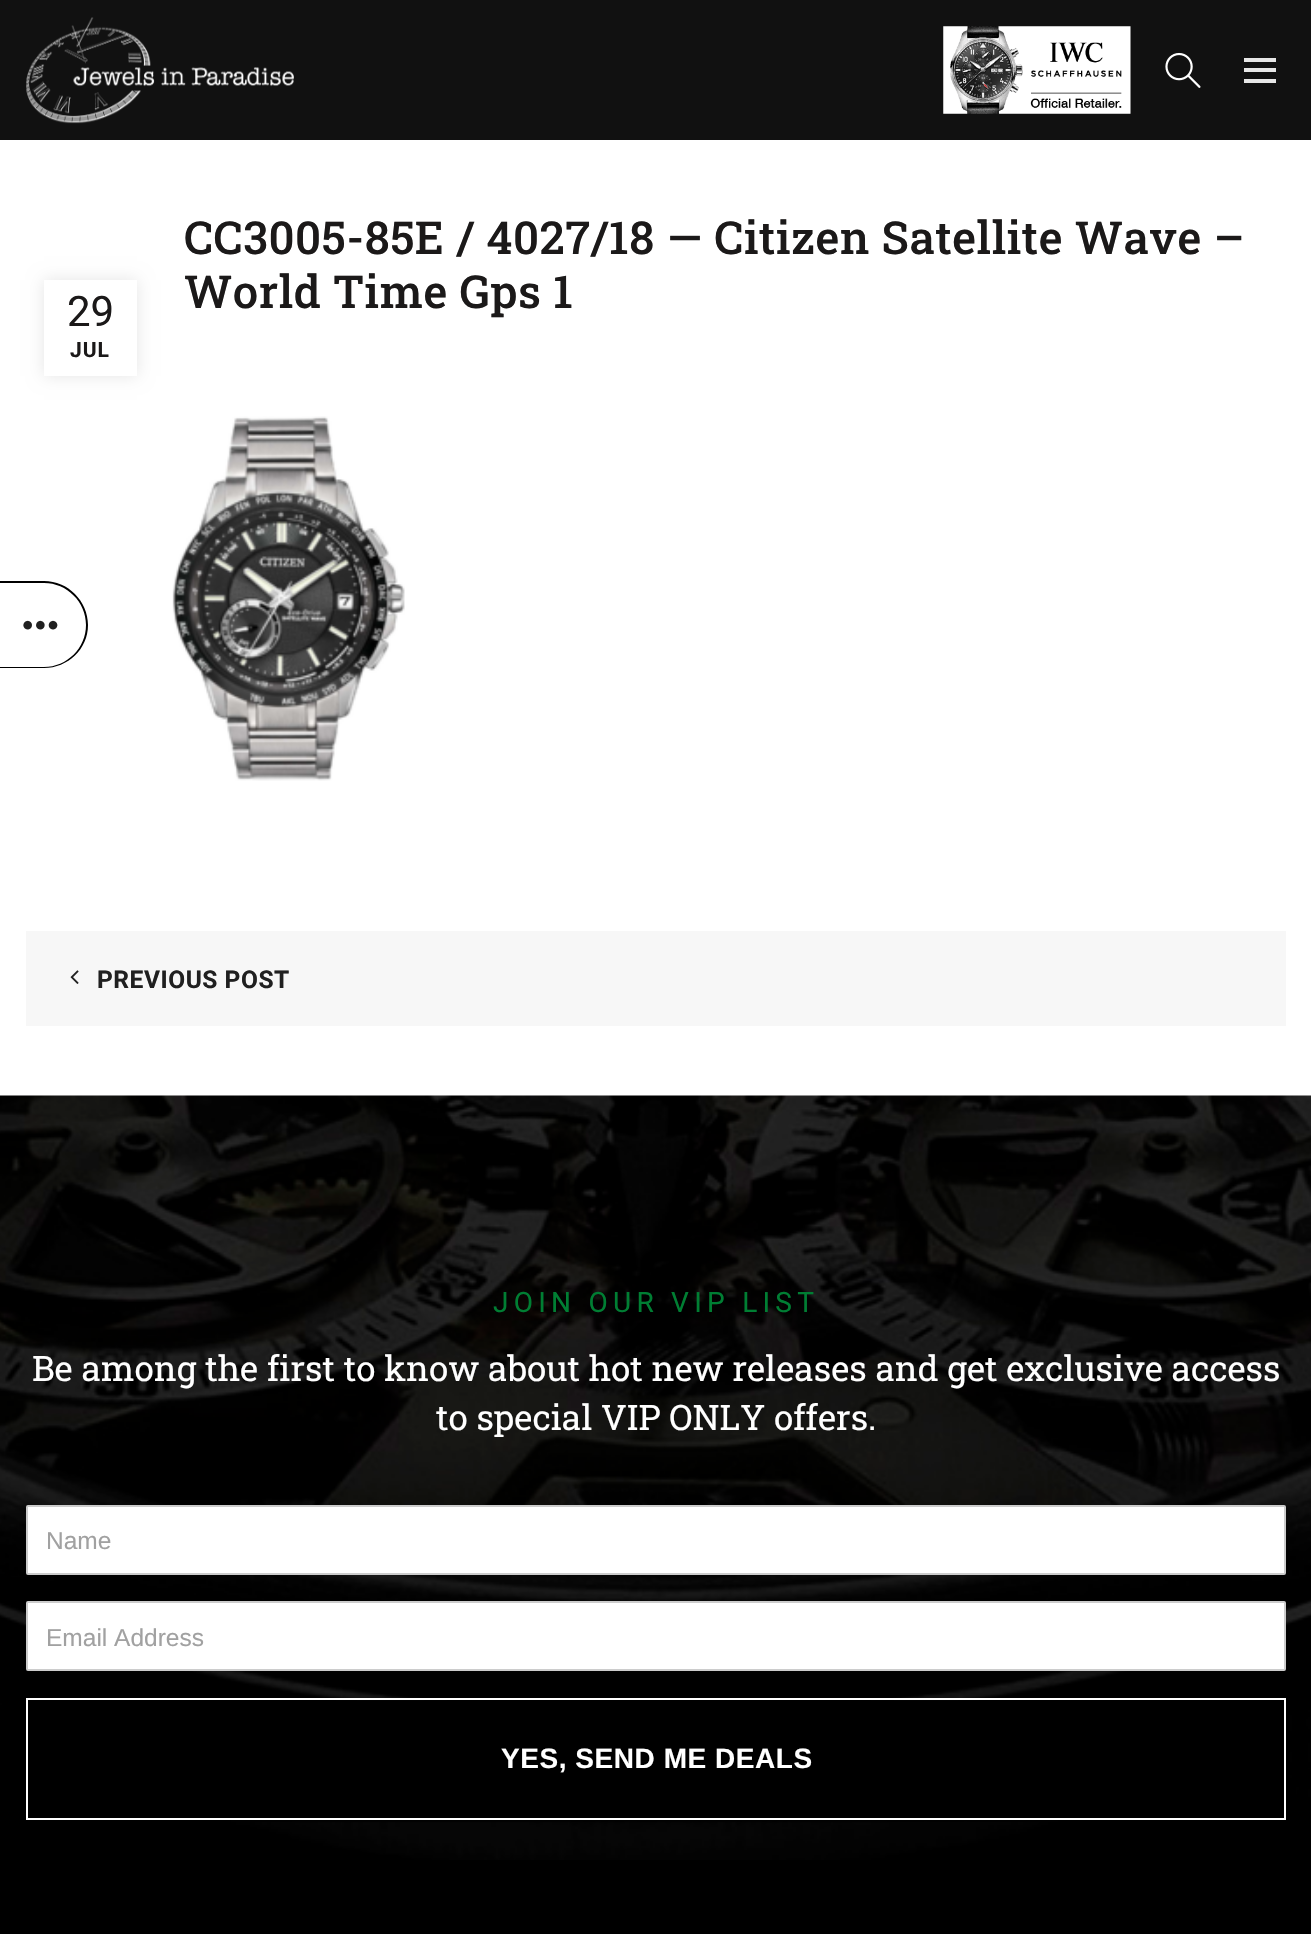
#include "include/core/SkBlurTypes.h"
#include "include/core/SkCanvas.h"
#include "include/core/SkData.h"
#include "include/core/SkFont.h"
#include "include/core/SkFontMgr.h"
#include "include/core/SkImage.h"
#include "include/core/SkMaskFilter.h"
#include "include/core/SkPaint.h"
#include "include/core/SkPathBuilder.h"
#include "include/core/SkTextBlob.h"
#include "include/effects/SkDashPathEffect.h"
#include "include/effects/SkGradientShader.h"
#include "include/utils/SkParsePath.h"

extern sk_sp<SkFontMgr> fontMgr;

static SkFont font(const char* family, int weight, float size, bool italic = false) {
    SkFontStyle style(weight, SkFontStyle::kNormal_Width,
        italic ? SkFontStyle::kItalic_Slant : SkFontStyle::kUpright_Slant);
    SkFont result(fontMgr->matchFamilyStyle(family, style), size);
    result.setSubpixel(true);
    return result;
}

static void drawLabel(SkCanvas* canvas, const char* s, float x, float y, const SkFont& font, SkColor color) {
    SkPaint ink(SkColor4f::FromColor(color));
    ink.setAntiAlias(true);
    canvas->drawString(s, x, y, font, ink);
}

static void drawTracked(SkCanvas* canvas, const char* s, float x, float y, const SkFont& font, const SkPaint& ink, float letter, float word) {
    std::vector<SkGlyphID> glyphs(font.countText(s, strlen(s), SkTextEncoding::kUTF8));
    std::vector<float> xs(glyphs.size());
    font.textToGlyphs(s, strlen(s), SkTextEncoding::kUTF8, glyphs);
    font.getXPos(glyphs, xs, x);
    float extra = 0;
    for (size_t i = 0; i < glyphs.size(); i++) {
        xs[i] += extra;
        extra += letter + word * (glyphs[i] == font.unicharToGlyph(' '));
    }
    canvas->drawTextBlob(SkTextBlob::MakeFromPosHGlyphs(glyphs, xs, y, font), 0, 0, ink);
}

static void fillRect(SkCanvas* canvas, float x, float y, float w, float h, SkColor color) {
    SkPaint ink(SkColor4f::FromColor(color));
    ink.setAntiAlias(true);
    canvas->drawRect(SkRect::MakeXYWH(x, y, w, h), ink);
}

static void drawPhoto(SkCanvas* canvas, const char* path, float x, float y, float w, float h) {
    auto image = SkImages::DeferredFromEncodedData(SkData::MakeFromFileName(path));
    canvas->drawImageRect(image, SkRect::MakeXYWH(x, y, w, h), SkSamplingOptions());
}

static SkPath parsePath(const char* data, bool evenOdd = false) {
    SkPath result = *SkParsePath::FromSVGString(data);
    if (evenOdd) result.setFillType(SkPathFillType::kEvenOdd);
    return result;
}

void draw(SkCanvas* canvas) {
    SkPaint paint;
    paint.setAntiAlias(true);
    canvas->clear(0xFFFFFFFF);
    fillRect(canvas, 0, 0, 1311, 140, 0xFF111111);
    drawPhoto(canvas, "assets/img1.png", 26, 17, 268, 107);
    drawPhoto(canvas, "assets/img2.png", 943, 26, 188, 88);
    drawPhoto(canvas, "assets/img3.png", 1165, 52, 36, 36);
    fillRect(canvas, 1244, 68, 32, 4, 0xFFE7E7E7);
    fillRect(canvas, 1244, 58, 32, 4, 0xFFE7E7E7);
    fillRect(canvas, 1244, 79, 32, 4, 0xFFE7E7E7);
    SkFont font1 = font("Roboto Slab", 500, 45.5f);
    paint.setColor(0xFF1B1919);
    drawTracked(canvas, "CC3005-85E / 4027/18 — Citizen Satellite Wave –", 184, 254, font1, paint, 0.55f, 0);
    drawTracked(canvas, "World Time Gps 1", 184, 308, font1, paint, 0.55f, 0);
    paint.setColor(0x1A000000);
    paint.setMaskFilter(SkMaskFilter::MakeBlur(kNormal_SkBlurStyle, 8));
    canvas->drawRect(SkRect::MakeXYWH(44, 280, 93, 96), paint);
    paint.setMaskFilter(nullptr);
    fillRect(canvas, 44, 280, 93, 96, 0xFFFFFFFF);
    SkFont font2 = font("Roboto", 400, 42);
    drawLabel(canvas, "29", 67, 326, font2, 0xFF1B1919);
    SkFont font3 = font("Roboto", 700, 21);
    paint.setColor(0xFF1B1919);
    drawTracked(canvas, "JUL", 70, 357, font3, paint, 1, 0);
    drawPhoto(canvas, "assets/img4.png", 172, 416, 233, 365);
    fillRect(canvas, 26, 931, 1260, 95, 0xFFF7F7F7);
    drawPhoto(canvas, "assets/img5.png", 70, 970, 9, 14);
    SkFont font4 = font("Roboto", 700, 24.5f);
    paint.setColor(0xFF202020);
    drawTracked(canvas, "PREVIOUS POST", 97, 988, font4, paint, 0.55f, 0);
    fillRect(canvas, 0, 1860, 1311, 74, 0xFF000000);
    drawPhoto(canvas, "assets/img6.png", 0, 1095, 1311, 765);
    SkFont font5 = font("Roboto", 400, 28);
    paint.setColor(0xFF007E33);
    drawTracked(canvas, "JOIN OUR VIP LIST", 493, 1312, font5, paint, 5.25f, 0);
    SkFont font6 = font("Roboto Slab", 400, 35);
    drawLabel(canvas, "Be among the first to know about hot new releases and get exclusive access", 32, 1381, font6, 0xFFFFFFFF);
    drawLabel(canvas, "to special VIP ONLY offers.", 436, 1430, font6, 0xFFFFFFFF);
    paint.setColor(0xFFFFFFFF);
    canvas->drawRoundRect(SkRect::MakeXYWH(27, 1506, 1258, 68), 1, 1, paint);
    paint.setStroke(true);
    paint.setStrokeWidth(2);
    paint.setColor(0xFFCCCCCC);
    canvas->drawRoundRect(SkRect::MakeXYWH(27, 1506, 1258, 68), 1, 1, paint);
    SkFont font7 = font("Liberation Sans", 400, 24.5f);
    drawLabel(canvas, "Name", 46, 1549, font7, 0xFFA1A1A1);
    paint.setStroke(false);
    paint.setColor(0xFFFFFFFF);
    canvas->drawRoundRect(SkRect::MakeXYWH(27, 1602, 1258, 68), 1, 1, paint);
    paint.setStroke(true);
    paint.setColor(0xFFCCCCCC);
    canvas->drawRoundRect(SkRect::MakeXYWH(27, 1602, 1258, 68), 1, 1, paint);
    drawLabel(canvas, "Email Address", 46, 1646, font7, 0xFFA1A1A1);
    paint.setStroke(false);
    paint.setColor(0xFF000000);
    paint.setMaskFilter(SkMaskFilter::MakeBlur(kNormal_SkBlurStyle, 1));
    canvas->drawRect(SkRect::MakeXYWH(26, 1699, 1260, 123), paint);
    paint.setMaskFilter(nullptr);
    paint.setStroke(true);
    paint.setColor(0xFFFFFFFF);
    canvas->drawRect(SkRect::MakeXYWH(27, 1699, 1258, 120), paint);
    SkFont font8 = font("Liberation Sans", 700, 28);
    paint.setStroke(false);
    drawTracked(canvas, "YES, SEND ME DEALS", 501, 1768, font8, paint, 0.55f, 0);
    paint.setColor(0xFF000000);
    canvas->drawPath(parsePath("M0 581H44C68 581 88 601 88 625C88 649 68 668 44 668H0ZM0 583H44C67 583 86 602 86 625C86 648 67 667 44 667H0Z", true), paint);
    drawPhoto(canvas, "assets/img7.png", 23, 620, 35, 10);
}
